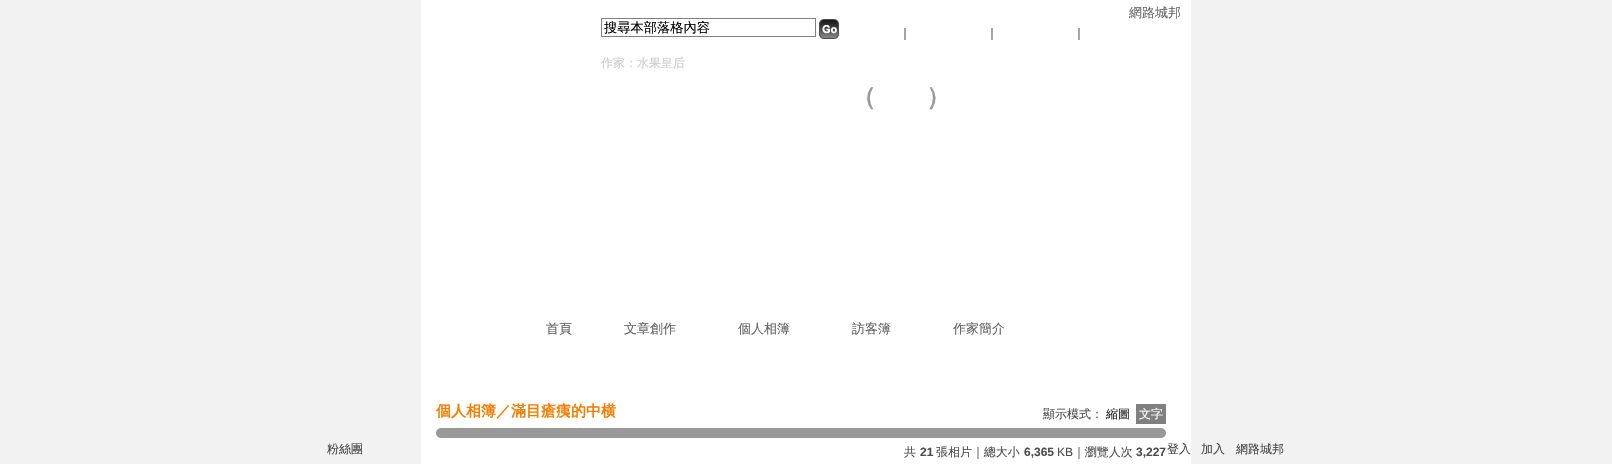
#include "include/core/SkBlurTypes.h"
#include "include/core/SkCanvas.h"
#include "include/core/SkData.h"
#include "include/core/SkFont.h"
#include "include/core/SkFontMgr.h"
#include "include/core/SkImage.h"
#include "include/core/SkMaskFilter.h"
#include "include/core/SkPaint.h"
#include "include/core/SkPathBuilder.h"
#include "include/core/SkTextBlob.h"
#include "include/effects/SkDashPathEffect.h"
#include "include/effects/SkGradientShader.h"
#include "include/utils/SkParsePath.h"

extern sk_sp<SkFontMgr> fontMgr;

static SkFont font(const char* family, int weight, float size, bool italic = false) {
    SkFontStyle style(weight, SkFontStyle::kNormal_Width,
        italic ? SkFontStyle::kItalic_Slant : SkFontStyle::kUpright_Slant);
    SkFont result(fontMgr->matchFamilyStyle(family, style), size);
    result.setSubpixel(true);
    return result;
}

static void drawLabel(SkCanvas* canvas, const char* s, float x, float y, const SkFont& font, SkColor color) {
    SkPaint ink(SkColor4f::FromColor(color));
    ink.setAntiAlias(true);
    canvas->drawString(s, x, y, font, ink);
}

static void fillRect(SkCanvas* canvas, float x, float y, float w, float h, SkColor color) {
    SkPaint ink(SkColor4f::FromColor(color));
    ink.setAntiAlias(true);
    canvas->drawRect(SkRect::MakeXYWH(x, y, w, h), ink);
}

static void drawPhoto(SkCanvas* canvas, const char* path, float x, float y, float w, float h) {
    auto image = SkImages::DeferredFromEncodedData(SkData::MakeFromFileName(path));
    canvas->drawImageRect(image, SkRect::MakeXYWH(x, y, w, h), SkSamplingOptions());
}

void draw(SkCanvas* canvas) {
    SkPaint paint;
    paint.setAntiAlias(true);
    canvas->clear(0xFFF2F2F2);
    fillRect(canvas, 421, 0, 770, 464, 0xFFFFFFFF);
    SkFont font1 = font("WenQuanYi Zen Hei", 500, 13);
    drawLabel(canvas, "網路城邦", 1129, 17, font1, 0xFF666666);
    paint.setStroke(true);
    paint.setStrokeWidth(1);
    paint.setColor(0xFF808080);
    canvas->drawRect(SkRect::MakeXYWH(601.5f, 18.5f, 214, 18), paint);
    SkFont font2 = font("WenQuanYi Zen Hei", 500, 13.25f);
    drawLabel(canvas, "搜尋本部落格內容", 604, 32, font2, 0xFF000000);
    drawPhoto(canvas, "assets/img1.png", 819, 19, 20, 20);
    SkFont font3 = font("WenQuanYi Zen Hei", 500, 12);
    drawLabel(canvas, "｜", 899, 37, font3, 0xFF333333);
    drawLabel(canvas, "｜", 986, 37, font3, 0xFF333333);
    drawLabel(canvas, "｜", 1073, 37, font3, 0xFF333333);
    drawLabel(canvas, "作家：水果皇后", 601, 67, font3, 0xFFCCCCCC);
    SkFont font4 = font("WenQuanYi Zen Hei", 700, 25);
    drawLabel(canvas, "（", 851, 105, font4, 0xFF999999);
    drawLabel(canvas, "）", 926, 105, font4, 0xFF999999);
    drawLabel(canvas, "首頁", 546, 333, font1, 0xFF606060);
    drawLabel(canvas, "文章創作", 624, 333, font1, 0xFF606060);
    drawLabel(canvas, "個人相簿", 738, 333, font1, 0xFF606060);
    drawLabel(canvas, "訪客簿", 852, 333, font1, 0xFF606060);
    drawLabel(canvas, "作家簡介", 953, 333, font1, 0xFF606060);
    SkFont font5 = font("WenQuanYi Zen Hei", 700, 15);
    drawLabel(canvas, "個人相簿／滿目瘡痍的中横", 436, 416, font5, 0xFFF47E00);
    drawLabel(canvas, "顯示模式：", 1043, 418, font3, 0xFF4D4D4D);
    drawLabel(canvas, "縮圖", 1106, 418, font3, 0xFF1A1A1A);
    fillRect(canvas, 1136, 404, 30, 20, 0xFF808080);
    drawLabel(canvas, "文字", 1139, 418, font3, 0xFFFFFFFF);
    drawPhoto(canvas, "assets/img2.png", 436, 428, 5, 5);
    fillRect(canvas, 441, 428, 720, 10, 0xFF999999);
    drawPhoto(canvas, "assets/img3.png", 1161, 428, 5, 5);
    drawPhoto(canvas, "assets/img4.png", 436, 433, 5, 5);
    drawPhoto(canvas, "assets/img5.png", 1161, 433, 5, 5);
    drawLabel(canvas, "共", 904, 456, font3, 0xFF4D4D4D);
    SkFont font6 = font("Liberation Sans", 700, 12);
    drawLabel(canvas, "21", 920, 456, font6, 0xFF4D4D4D);
    drawLabel(canvas, "張相片｜總大小", 936, 456, font3, 0xFF4D4D4D);
    drawLabel(canvas, "6,365", 1024, 456, font6, 0xFF4D4D4D);
    SkFont font7 = font("Liberation Sans", 400, 12);
    drawLabel(canvas, "KB", 1057, 456, font7, 0xFF4D4D4D);
    drawLabel(canvas, "｜瀏覽人次", 1073, 456, font3, 0xFF4D4D4D);
    drawLabel(canvas, "3,227", 1136, 456, font6, 0xFF4D4D4D);
    drawLabel(canvas, "粉絲團", 327, 453, font3, 0xFF444444);
    drawLabel(canvas, "登入", 1167, 453, font3, 0xFF444444);
    drawLabel(canvas, "加入", 1201, 453, font3, 0xFF444444);
    drawLabel(canvas, "網路城邦", 1236, 453, font3, 0xFF444444);
}
